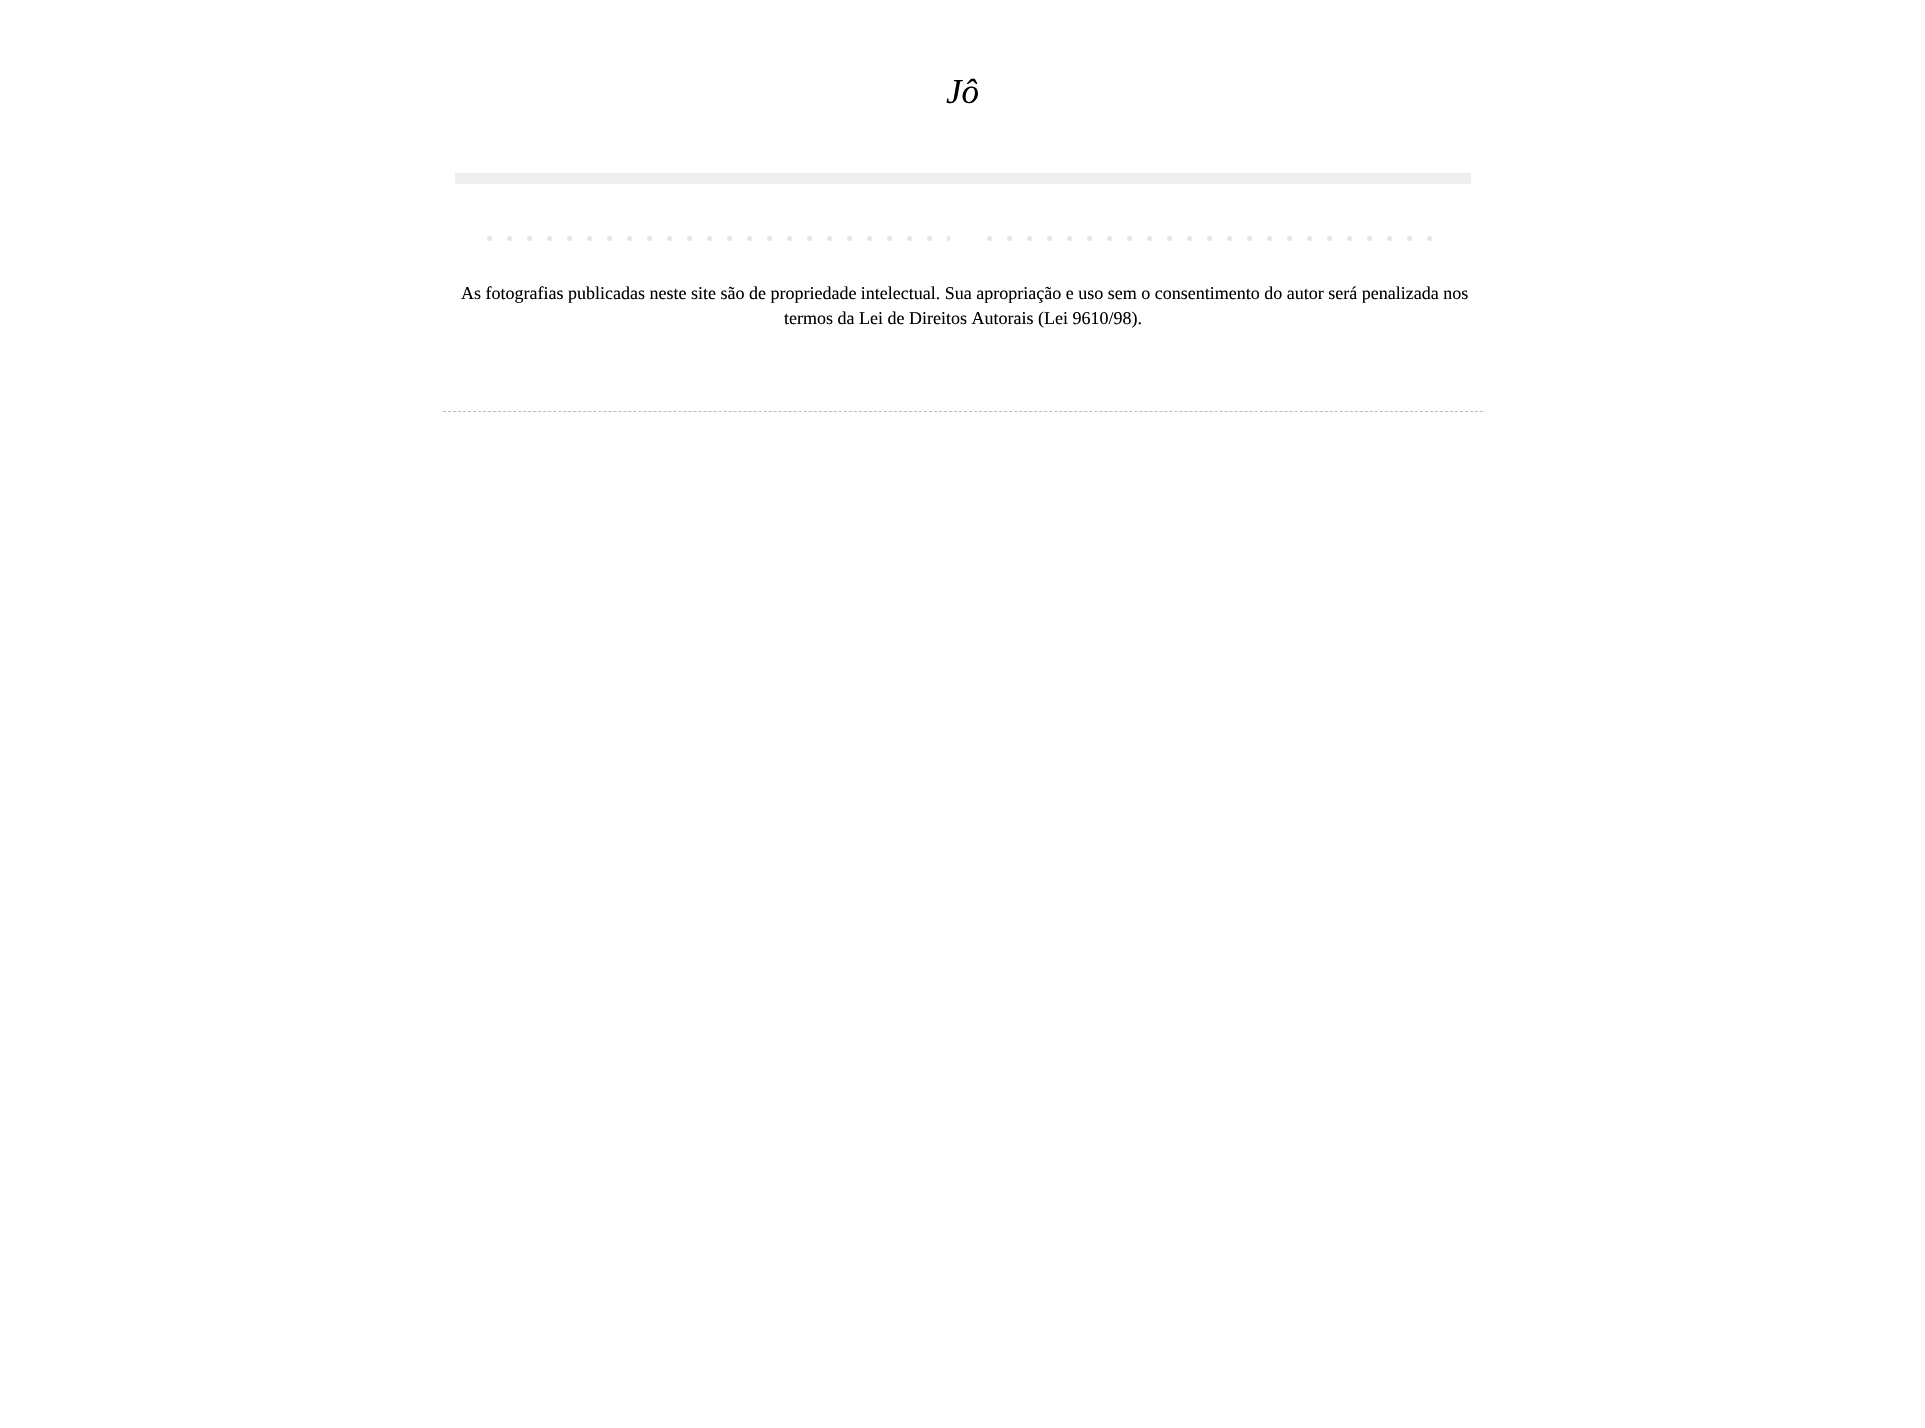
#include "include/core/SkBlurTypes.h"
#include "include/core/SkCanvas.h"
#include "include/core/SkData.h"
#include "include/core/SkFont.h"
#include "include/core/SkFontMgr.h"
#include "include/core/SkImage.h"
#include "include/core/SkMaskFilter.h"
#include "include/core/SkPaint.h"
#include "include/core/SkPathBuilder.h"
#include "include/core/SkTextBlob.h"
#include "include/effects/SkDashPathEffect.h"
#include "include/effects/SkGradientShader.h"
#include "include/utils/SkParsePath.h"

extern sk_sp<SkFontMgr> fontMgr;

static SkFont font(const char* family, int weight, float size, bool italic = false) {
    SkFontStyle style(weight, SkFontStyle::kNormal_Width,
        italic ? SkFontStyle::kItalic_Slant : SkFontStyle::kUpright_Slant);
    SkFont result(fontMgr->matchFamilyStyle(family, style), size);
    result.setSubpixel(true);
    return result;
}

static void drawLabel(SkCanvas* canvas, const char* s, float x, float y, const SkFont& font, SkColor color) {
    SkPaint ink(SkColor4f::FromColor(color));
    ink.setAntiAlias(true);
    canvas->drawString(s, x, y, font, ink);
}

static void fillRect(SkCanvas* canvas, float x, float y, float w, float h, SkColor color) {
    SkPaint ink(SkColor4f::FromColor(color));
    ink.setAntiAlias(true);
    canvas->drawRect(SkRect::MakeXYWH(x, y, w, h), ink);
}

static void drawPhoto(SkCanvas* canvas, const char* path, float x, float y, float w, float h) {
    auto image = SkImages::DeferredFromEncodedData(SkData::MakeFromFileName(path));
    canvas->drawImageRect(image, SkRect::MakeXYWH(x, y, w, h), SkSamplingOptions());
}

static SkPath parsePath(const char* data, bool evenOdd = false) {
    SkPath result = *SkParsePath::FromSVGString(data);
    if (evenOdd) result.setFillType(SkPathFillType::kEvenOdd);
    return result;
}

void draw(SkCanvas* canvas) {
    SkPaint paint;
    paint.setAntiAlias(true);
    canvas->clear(0xFFFFFFFF);
    SkFont font1 = font("Liberation Serif", 400, 35, true);
    drawLabel(canvas, "Jô", 946, 103, font1, 0xFF000000);
    fillRect(canvas, 455, 173, 1016, 11, 0xFFEEEEEE);
    drawPhoto(canvas, "assets/img1.png", 487, 236, 945, 5);
    fillRect(canvas, 950, 236, 23, 5, 0xFFFFFFFF);
    SkFont font2 = font("Liberation Serif", 400, 18);
    drawLabel(canvas, "As fotografias publicadas neste site são de propriedade intelectual. Sua apropriação e uso sem o consentimento do autor será penalizada nos", 461, 299, font2, 0xFF000000);
    drawLabel(canvas, "termos da Lei de Direitos Autorais (Lei 9610/98).", 784, 324, font2, 0xFF000000);
    paint.setStroke(true);
    paint.setStrokeWidth(1);
    paint.setColor(0xFFBBBBBB);
    paint.setPathEffect(SkDashPathEffect::Make({{3, 2.01f}}, 0));
    canvas->drawPath(parsePath("M443 411.5H1483"), paint);
    paint.setPathEffect(nullptr);
}
